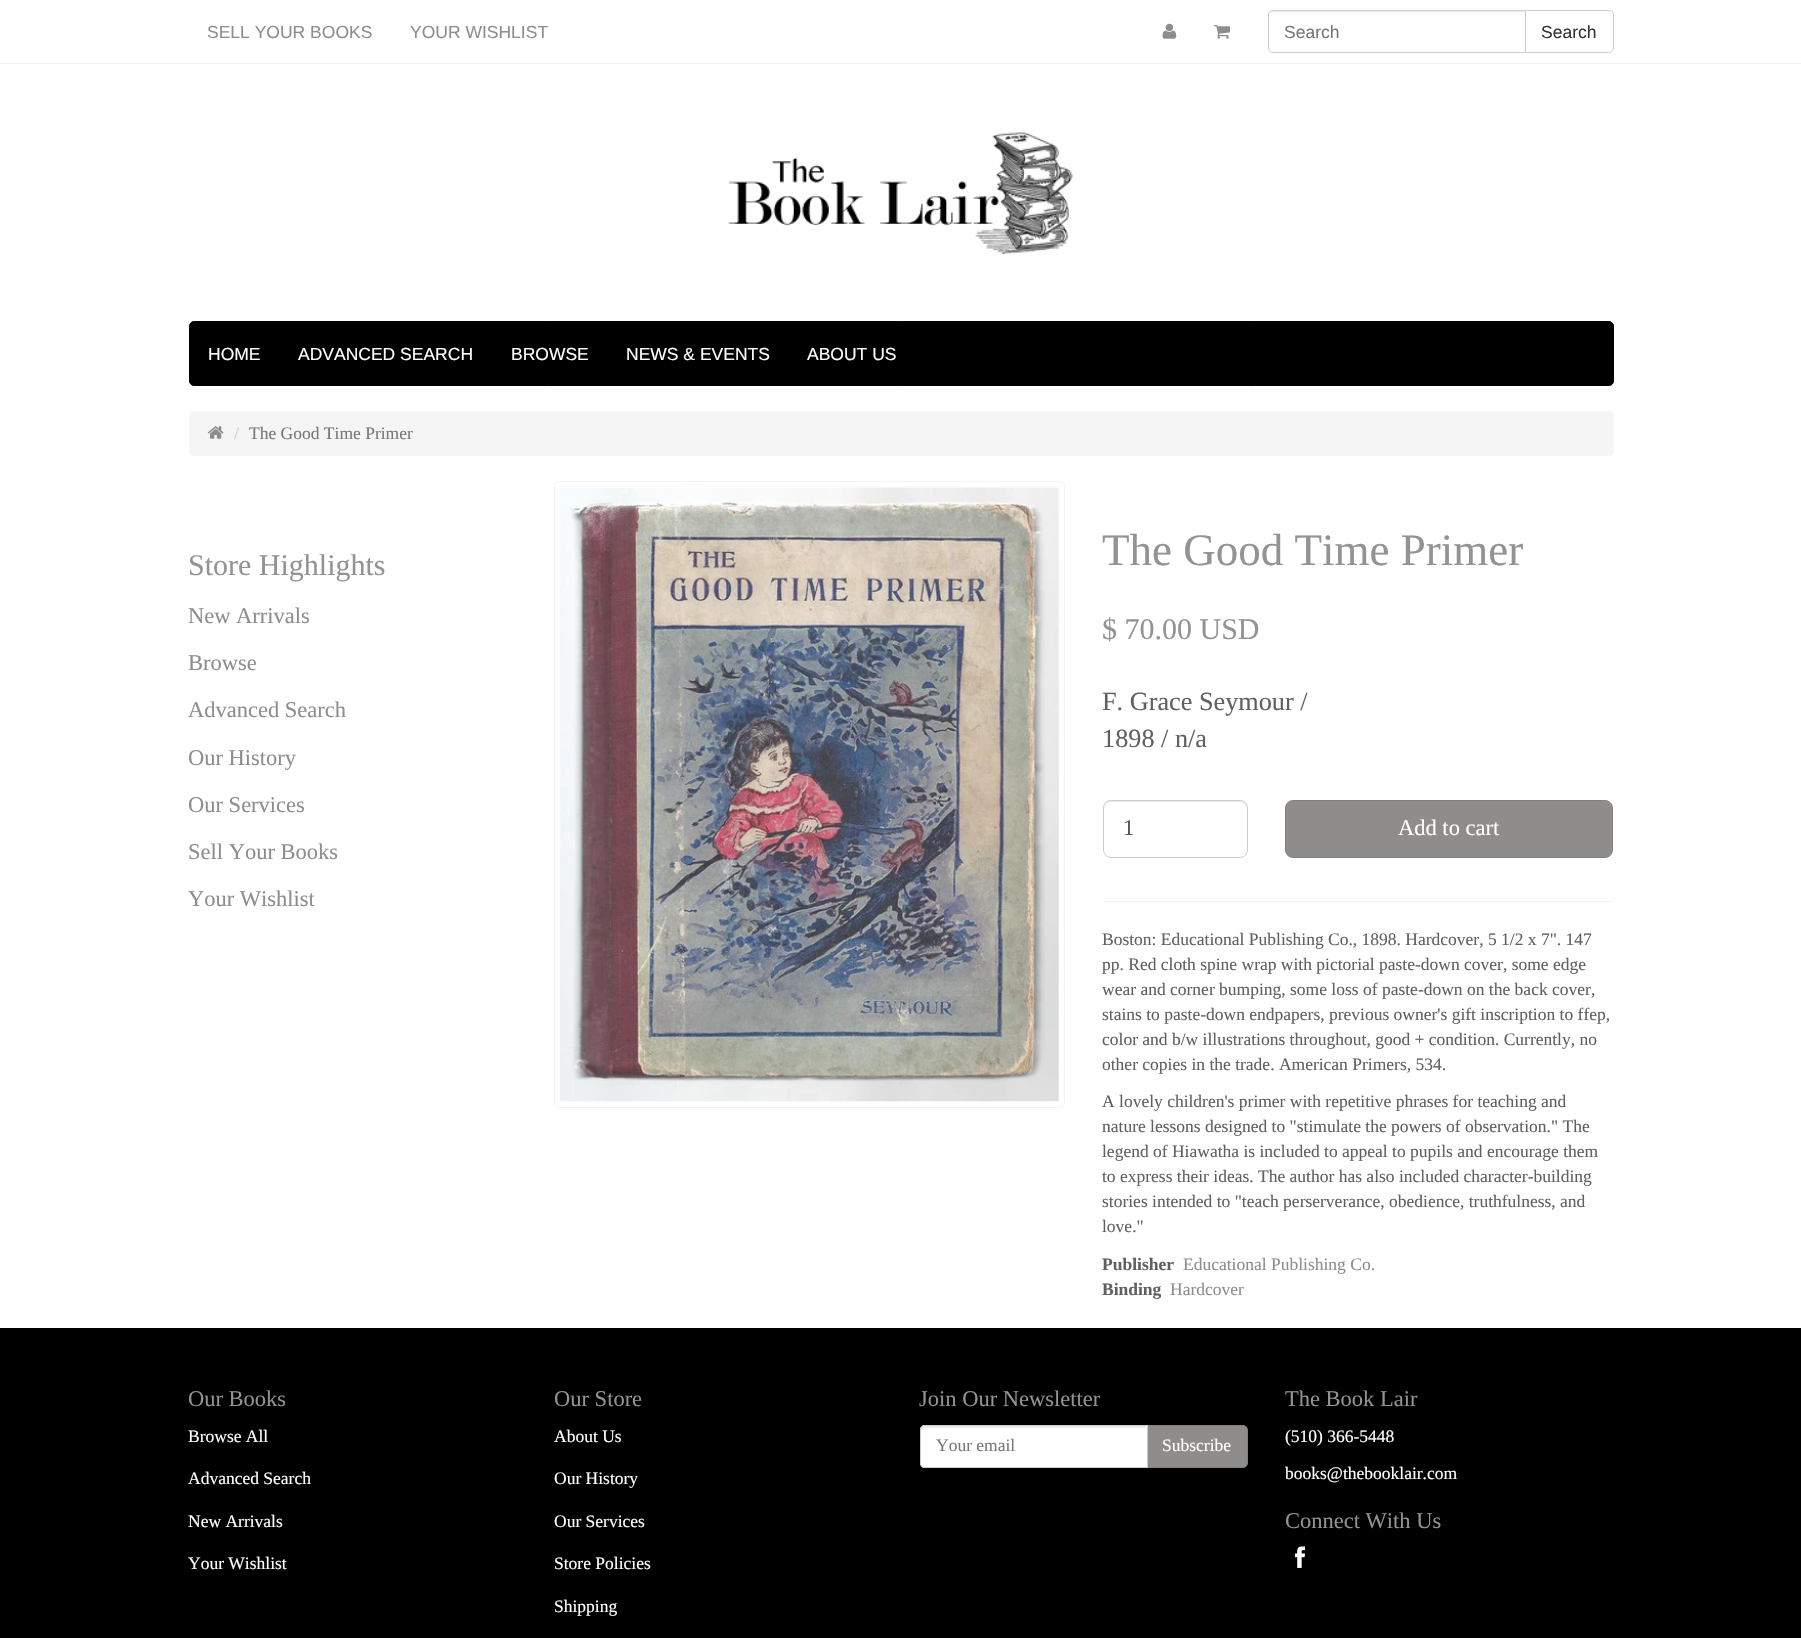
#include "include/core/SkBlurTypes.h"
#include "include/core/SkCanvas.h"
#include "include/core/SkData.h"
#include "include/core/SkFont.h"
#include "include/core/SkFontMgr.h"
#include "include/core/SkImage.h"
#include "include/core/SkMaskFilter.h"
#include "include/core/SkPaint.h"
#include "include/core/SkPathBuilder.h"
#include "include/core/SkTextBlob.h"
#include "include/effects/SkDashPathEffect.h"
#include "include/effects/SkGradientShader.h"
#include "include/utils/SkParsePath.h"

extern sk_sp<SkFontMgr> fontMgr;

static SkFont font(const char* family, int weight, float size, bool italic = false) {
    SkFontStyle style(weight, SkFontStyle::kNormal_Width,
        italic ? SkFontStyle::kItalic_Slant : SkFontStyle::kUpright_Slant);
    SkFont result(fontMgr->matchFamilyStyle(family, style), size);
    result.setSubpixel(true);
    return result;
}

static void drawLabel(SkCanvas* canvas, const char* s, float x, float y, const SkFont& font, SkColor color) {
    SkPaint ink(SkColor4f::FromColor(color));
    ink.setAntiAlias(true);
    canvas->drawString(s, x, y, font, ink);
}

static void fillRect(SkCanvas* canvas, float x, float y, float w, float h, SkColor color) {
    SkPaint ink(SkColor4f::FromColor(color));
    ink.setAntiAlias(true);
    canvas->drawRect(SkRect::MakeXYWH(x, y, w, h), ink);
}

static void fillRRect(SkCanvas* canvas, float x, float y, float w, float h, float radius, SkColor color) {
    SkPaint ink(SkColor4f::FromColor(color));
    ink.setAntiAlias(true);
    canvas->drawRoundRect(SkRect::MakeXYWH(x, y, w, h), radius, radius, ink);
}

static void drawPhoto(SkCanvas* canvas, const char* path, float x, float y, float w, float h) {
    auto image = SkImages::DeferredFromEncodedData(SkData::MakeFromFileName(path));
    canvas->drawImageRect(image, SkRect::MakeXYWH(x, y, w, h), SkSamplingOptions());
}

static SkPath parsePath(const char* data, bool evenOdd = false) {
    SkPath result = *SkParsePath::FromSVGString(data);
    if (evenOdd) result.setFillType(SkPathFillType::kEvenOdd);
    return result;
}

void draw(SkCanvas* canvas) {
    SkPaint paint;
    paint.setAntiAlias(true);
    canvas->clear(0xFFFFFFFF);
    fillRect(canvas, 0, 63, 1801, 1, 0xFFF2F2F2);
    SkFont font1 = font("Liberation Sans", 400, 17.5f);
    drawLabel(canvas, "SELL YOUR BOOKS", 207, 38, font1, 0xFF8F8C8C);
    drawLabel(canvas, "YOUR WISHLIST", 410, 38, font1, 0xFF8F8C8C);
    drawPhoto(canvas, "assets/img1.png", 1162, 23, 15, 16);
    drawPhoto(canvas, "assets/img2.png", 1213, 25, 17, 14);
    paint.setStroke(true);
    paint.setStrokeWidth(1);
    paint.setColor(0xFFCCCCCC);
    canvas->drawPath(parsePath("M1525.5 10.5H1609C1611.5 10.5 1613.5 12.5 1613.5 15V48C1613.5 50.5 1611.5 52.5 1609 52.5H1525.5Z"), paint);
    paint.setStroke(false);
    paint.setColor(0xFFFFFFFF);
    canvas->drawPath(parsePath("M1273 10H1526V53H1273C1270 53 1268 51 1268 48V15C1268 12 1270 10 1273 10Z"), paint);
    paint.setColor(0xFFECECEC);
    canvas->drawPath(parsePath("M1272 12H1525V11H1273C1271 11 1269 13 1269 15V16C1269 14 1270 12 1272 12Z"), paint);
    paint.setStroke(true);
    paint.setColor(0xFFCCCCCC);
    canvas->drawPath(parsePath("M1273 10.5H1525.5V52.5H1273C1270.5 52.5 1268.5 50.5 1268.5 48V15C1268.5 12.5 1270.5 10.5 1273 10.5Z"), paint);
    drawLabel(canvas, "Search", 1284, 38, font1, 0xFF777777);
    drawLabel(canvas, "Search", 1541, 38, font1, 0xFF333333);
    drawPhoto(canvas, "assets/img3.png", 728, 132, 345, 122);
    paint.setStroke(false);
    paint.setColor(0xFF000000);
    canvas->drawRoundRect(SkRect::MakeXYWH(189.5f, 321.5f, 1424, 64), 4.5f, 4.5f, paint);
    paint.setStroke(true);
    canvas->drawRoundRect(SkRect::MakeXYWH(189.5f, 321.5f, 1424, 64), 4.5f, 4.5f, paint);
    drawLabel(canvas, "HOME", 208, 360, font1, 0xFFFFFFFF);
    drawLabel(canvas, "ADVANCED SEARCH", 298, 360, font1, 0xFFFFFFFF);
    drawLabel(canvas, "BROWSE", 511, 360, font1, 0xFFFFFFFF);
    drawLabel(canvas, "NEWS & EVENTS", 626, 360, font1, 0xFFFFFFFF);
    drawLabel(canvas, "ABOUT US", 807, 360, font1, 0xFFFFFFFF);
    fillRRect(canvas, 189, 411, 1425, 45, 5, 0xFFF5F5F5);
    drawPhoto(canvas, "assets/img4.png", 207, 426, 17, 13);
    SkFont font2 = font("Liberation Serif", 400, 17.5f);
    drawLabel(canvas, "/", 234, 439, font2, 0xFFCCCCCC);
    drawLabel(canvas, "The Good Time Primer", 249, 439, font2, 0xFF777777);
    SkFont font3 = font("Liberation Serif", 400, 30);
    drawLabel(canvas, "Store Highlights", 188, 575, font3, 0xFF949292);
    SkFont font4 = font("Liberation Serif", 400, 22.5f);
    drawLabel(canvas, "New Arrivals", 188, 623, font4, 0xFF8F8C8C);
    drawLabel(canvas, "Browse", 188, 670, font4, 0xFF8F8C8C);
    drawLabel(canvas, "Advanced Search", 188, 717, font4, 0xFF8F8C8C);
    drawLabel(canvas, "Our History", 188, 765, font4, 0xFF8F8C8C);
    drawLabel(canvas, "Our Services", 188, 812, font4, 0xFF8F8C8C);
    drawLabel(canvas, "Sell Your Books", 188, 859, font4, 0xFF8F8C8C);
    drawLabel(canvas, "Your Wishlist", 188, 906, font4, 0xFF8F8C8C);
    paint.setColor(0xFFF2F2F2);
    canvas->drawRoundRect(SkRect::MakeXYWH(554.5f, 481.5f, 510, 626), 4.5f, 4.5f, paint);
    drawPhoto(canvas, "assets/img5.png", 560, 487, 499, 615);
    SkFont font5 = font("Liberation Serif", 400, 45);
    drawLabel(canvas, "The Good Time Primer", 1102, 565, font5, 0xFF949292);
    drawLabel(canvas, "$ 70.00 USD", 1102, 639, font3, 0xFF949292);
    SkFont font6 = font("Liberation Serif", 400, 26.25f);
    drawLabel(canvas, "F. Grace Seymour /", 1102, 710, font6, 0xFF616060);
    drawLabel(canvas, "1898 / n/a", 1102, 747, font6, 0xFF616060);
    paint.setStroke(false);
    paint.setColor(0xFFECECEC);
    canvas->drawPath(parsePath("M1110 802H1240C1243 802 1246 805 1246 809V807C1246 804 1243 801 1240 801H1110C1107 801 1104 804 1104 807V809C1104 805 1107 802 1110 802Z"), paint);
    paint.setStroke(true);
    paint.setColor(0xFFCCCCCC);
    canvas->drawRoundRect(SkRect::MakeXYWH(1103.5f, 800.5f, 144, 57), 7.5f, 7.5f, paint);
    drawLabel(canvas, "1", 1123, 835, font4, 0xFF555555);
    paint.setStroke(false);
    paint.setColor(0xFF8F8C8C);
    canvas->drawRoundRect(SkRect::MakeXYWH(1285.5f, 800.5f, 327, 57), 7.5f, 7.5f, paint);
    paint.setStroke(true);
    paint.setColor(0xFF827F7F);
    canvas->drawRoundRect(SkRect::MakeXYWH(1285.5f, 800.5f, 327, 57), 7.5f, 7.5f, paint);
    drawLabel(canvas, "Add to cart", 1398, 835, font4, 0xFFFFFFFF);
    fillRect(canvas, 1103, 901, 511, 1, 0xFFF2F2F2);
    drawLabel(canvas, "Boston: Educational Publishing Co., 1898. Hardcover, 5 1/2 x 7\". 147", 1102, 945, font2, 0xFF616060);
    drawLabel(canvas, "pp. Red cloth spine wrap with pictorial paste-down cover, some edge", 1102, 970, font2, 0xFF616060);
    drawLabel(canvas, "wear and corner bumping, some loss of paste-down on the back cover,", 1102, 995, font2, 0xFF616060);
    drawLabel(canvas, "stains to paste-down endpapers, previous owner's gift inscription to ffep,", 1102, 1020, font2, 0xFF616060);
    drawLabel(canvas, "color and b/w illustrations throughout, good + condition. Currently, no", 1102, 1045, font2, 0xFF616060);
    drawLabel(canvas, "other copies in the trade. American Primers, 534.", 1102, 1070, font2, 0xFF616060);
    drawLabel(canvas, "A lovely children's primer with repetitive phrases for teaching and", 1102, 1107, font2, 0xFF616060);
    drawLabel(canvas, "nature lessons designed to \"stimulate the powers of observation.\" The", 1102, 1132, font2, 0xFF616060);
    drawLabel(canvas, "legend of Hiawatha is included to appeal to pupils and encourage them", 1102, 1157, font2, 0xFF616060);
    drawLabel(canvas, "to express their ideas. The author has also included character-building", 1102, 1182, font2, 0xFF616060);
    drawLabel(canvas, "stories intended to \"teach perserverance, obedience, truthfulness, and", 1102, 1207, font2, 0xFF616060);
    drawLabel(canvas, "love.\"", 1102, 1232, font2, 0xFF616060);
    SkFont font7 = font("Liberation Serif", 700, 17.5f);
    drawLabel(canvas, "Publisher", 1102, 1270, font7, 0xFF616060);
    drawLabel(canvas, "Educational Publishing Co.", 1183, 1270, font2, 0xFF8F8C8C);
    drawLabel(canvas, "Binding", 1102, 1295, font7, 0xFF616060);
    drawLabel(canvas, "Hardcover", 1170, 1295, font2, 0xFF8F8C8C);
    fillRect(canvas, 0, 1328, 1801, 310, 0xFF000000);
    drawLabel(canvas, "Our Books", 188, 1406, font4, 0xFF949292);
    drawLabel(canvas, "Browse All", 188, 1442, font2, 0xFFFFFFFF);
    drawLabel(canvas, "Advanced Search", 188, 1484, font2, 0xFFFFFFFF);
    drawLabel(canvas, "New Arrivals", 188, 1527, font2, 0xFFFFFFFF);
    drawLabel(canvas, "Your Wishlist", 188, 1569, font2, 0xFFFFFFFF);
    drawLabel(canvas, "Our Store", 554, 1406, font4, 0xFF949292);
    drawLabel(canvas, "About Us", 554, 1442, font2, 0xFFFFFFFF);
    drawLabel(canvas, "Our History", 554, 1484, font2, 0xFFFFFFFF);
    drawLabel(canvas, "Our Services", 554, 1527, font2, 0xFFFFFFFF);
    drawLabel(canvas, "Store Policies", 554, 1569, font2, 0xFFFFFFFF);
    drawLabel(canvas, "Shipping", 554, 1612, font2, 0xFFFFFFFF);
    drawLabel(canvas, "Join Our Newsletter", 919, 1406, font4, 0xFF949292);
    paint.setStroke(false);
    paint.setColor(0xFF8F8C8C);
    canvas->drawPath(parsePath("M1146.5 1425.5H1243C1245.5 1425.5 1247.5 1427.5 1247.5 1430V1463C1247.5 1465.5 1245.5 1467.5 1243 1467.5H1146.5Z"), paint);
    paint.setStroke(true);
    paint.setColor(0xFF827F7F);
    canvas->drawPath(parsePath("M1146.5 1425.5H1243C1245.5 1425.5 1247.5 1427.5 1247.5 1430V1463C1247.5 1465.5 1245.5 1467.5 1243 1467.5H1146.5Z"), paint);
    paint.setStroke(false);
    paint.setColor(0xFFFFFFFF);
    canvas->drawPath(parsePath("M925 1425H1148V1468H925C922 1468 920 1466 920 1463V1430C920 1427 922 1425 925 1425Z"), paint);
    paint.setColor(0xFFECECEC);
    canvas->drawPath(parsePath("M925 1428H1146V1426H925C922 1426 921 1428 921 1431C921 1429 923 1428 925 1428Z"), paint);
    paint.setStroke(true);
    paint.setColor(0xFFCCCCCC);
    canvas->drawPath(parsePath("M925 1425.5H1147.5V1467.5H925C922.5 1467.5 920.5 1465.5 920.5 1463V1430C920.5 1427.5 922.5 1425.5 925 1425.5Z"), paint);
    drawLabel(canvas, "Your email", 936, 1451, font2, 0xFF777777);
    drawLabel(canvas, "Subscribe", 1162, 1451, font2, 0xFFFFFFFF);
    drawLabel(canvas, "The Book Lair", 1285, 1406, font4, 0xFF949292);
    drawLabel(canvas, "(510) 366-5448", 1285, 1442, font2, 0xFFFFFFFF);
    drawLabel(canvas, "books@thebooklair.com", 1285, 1479, font2, 0xFFFFFFFF);
    drawLabel(canvas, "Connect With Us", 1285, 1528, font4, 0xFF949292);
    drawPhoto(canvas, "assets/img6.png", 1295, 1546, 10, 22);
}
